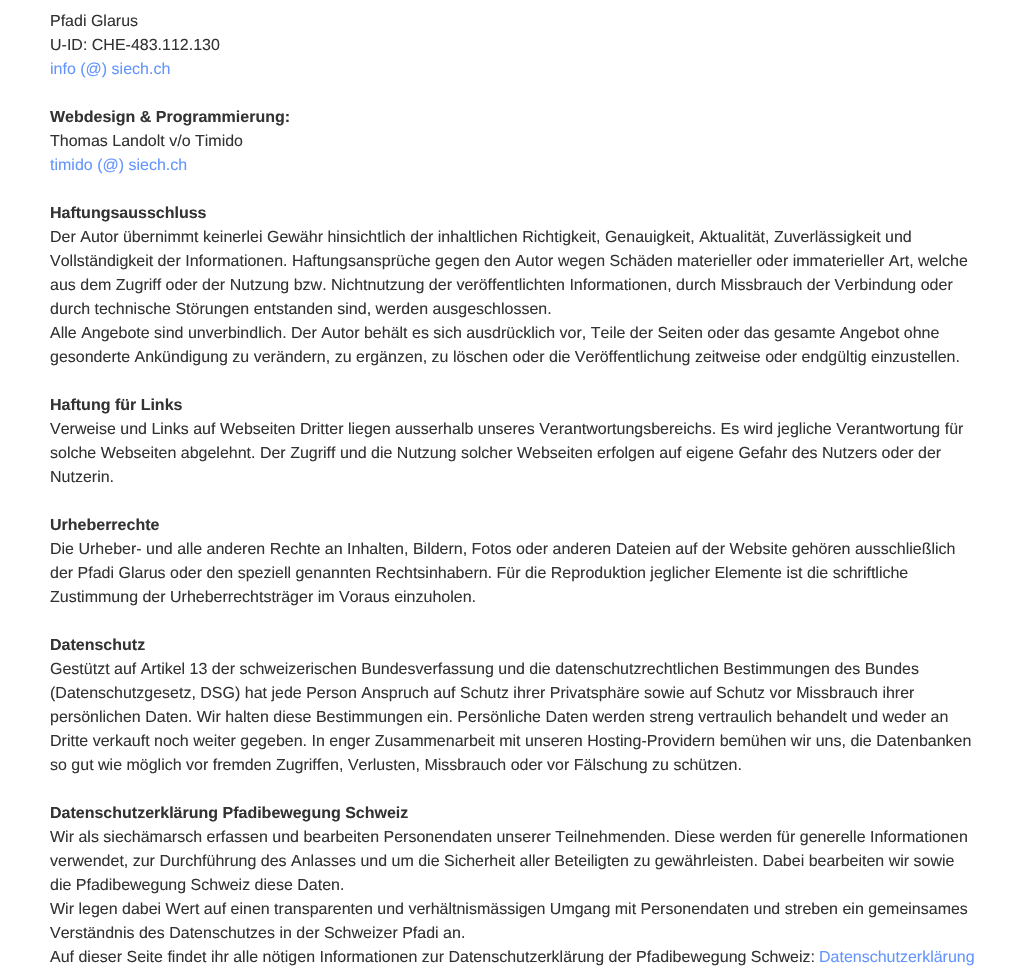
#include "include/core/SkBlurTypes.h"
#include "include/core/SkCanvas.h"
#include "include/core/SkData.h"
#include "include/core/SkFont.h"
#include "include/core/SkFontMgr.h"
#include "include/core/SkImage.h"
#include "include/core/SkMaskFilter.h"
#include "include/core/SkPaint.h"
#include "include/core/SkPathBuilder.h"
#include "include/core/SkTextBlob.h"
#include "include/effects/SkDashPathEffect.h"
#include "include/effects/SkGradientShader.h"
#include "include/utils/SkParsePath.h"

extern sk_sp<SkFontMgr> fontMgr;

static SkFont font(const char* family, int weight, float size, bool italic = false) {
    SkFontStyle style(weight, SkFontStyle::kNormal_Width,
        italic ? SkFontStyle::kItalic_Slant : SkFontStyle::kUpright_Slant);
    SkFont result(fontMgr->matchFamilyStyle(family, style), size);
    result.setSubpixel(true);
    return result;
}

static void drawLabel(SkCanvas* canvas, const char* s, float x, float y, const SkFont& font, SkColor color) {
    SkPaint ink(SkColor4f::FromColor(color));
    ink.setAntiAlias(true);
    canvas->drawString(s, x, y, font, ink);
}

void draw(SkCanvas* canvas) {
    SkPaint paint;
    paint.setAntiAlias(true);
    canvas->clear(0xFFFFFFFF);
    SkFont font1 = font("Liberation Sans", 400, 16);
    drawLabel(canvas, "Pfadi Glarus", 50, 26, font1, 0xFF333333);
    drawLabel(canvas, "U-ID: CHE-483.112.130", 50, 50, font1, 0xFF333333);
    drawLabel(canvas, "info (@) siech.ch", 50, 74, font1, 0xFF6495FE);
    SkFont font2 = font("Liberation Sans", 700, 16);
    drawLabel(canvas, "Webdesign & Programmierung:", 50, 122, font2, 0xFF333333);
    drawLabel(canvas, "Thomas Landolt v/o Timido", 50, 146, font1, 0xFF333333);
    drawLabel(canvas, "timido (@) siech.ch", 50, 170, font1, 0xFF6495FE);
    drawLabel(canvas, "Haftungsausschluss", 50, 218, font2, 0xFF333333);
    drawLabel(canvas, "Der Autor übernimmt keinerlei Gewähr hinsichtlich der inhaltlichen Richtigkeit, Genauigkeit, Aktualität, Zuverlässigkeit und", 50, 242, font1, 0xFF333333);
    drawLabel(canvas, "Vollständigkeit der Informationen. Haftungsansprüche gegen den Autor wegen Schäden materieller oder immaterieller Art, welche", 50, 266, font1, 0xFF333333);
    drawLabel(canvas, "aus dem Zugriff oder der Nutzung bzw. Nichtnutzung der veröffentlichten Informationen, durch Missbrauch der Verbindung oder", 50, 290, font1, 0xFF333333);
    drawLabel(canvas, "durch technische Störungen entstanden sind, werden ausgeschlossen.", 50, 314, font1, 0xFF333333);
    drawLabel(canvas, "Alle Angebote sind unverbindlich. Der Autor behält es sich ausdrücklich vor, Teile der Seiten oder das gesamte Angebot ohne", 50, 338, font1, 0xFF333333);
    drawLabel(canvas, "gesonderte Ankündigung zu verändern, zu ergänzen, zu löschen oder die Veröffentlichung zeitweise oder endgültig einzustellen.", 50, 362, font1, 0xFF333333);
    drawLabel(canvas, "Haftung für Links", 50, 410, font2, 0xFF333333);
    drawLabel(canvas, "Verweise und Links auf Webseiten Dritter liegen ausserhalb unseres Verantwortungsbereichs. Es wird jegliche Verantwortung für", 50, 434, font1, 0xFF333333);
    drawLabel(canvas, "solche Webseiten abgelehnt. Der Zugriff und die Nutzung solcher Webseiten erfolgen auf eigene Gefahr des Nutzers oder der", 50, 458, font1, 0xFF333333);
    drawLabel(canvas, "Nutzerin.", 50, 482, font1, 0xFF333333);
    drawLabel(canvas, "Urheberrechte", 50, 530, font2, 0xFF333333);
    drawLabel(canvas, "Die Urheber- und alle anderen Rechte an Inhalten, Bildern, Fotos oder anderen Dateien auf der Website gehören ausschließlich", 50, 554, font1, 0xFF333333);
    drawLabel(canvas, "der Pfadi Glarus oder den speziell genannten Rechtsinhabern. Für die Reproduktion jeglicher Elemente ist die schriftliche", 50, 578, font1, 0xFF333333);
    drawLabel(canvas, "Zustimmung der Urheberrechtsträger im Voraus einzuholen.", 50, 602, font1, 0xFF333333);
    drawLabel(canvas, "Datenschutz", 50, 650, font2, 0xFF333333);
    drawLabel(canvas, "Gestützt auf Artikel 13 der schweizerischen Bundesverfassung und die datenschutzrechtlichen Bestimmungen des Bundes", 50, 674, font1, 0xFF333333);
    drawLabel(canvas, "(Datenschutzgesetz, DSG) hat jede Person Anspruch auf Schutz ihrer Privatsphäre sowie auf Schutz vor Missbrauch ihrer", 50, 698, font1, 0xFF333333);
    drawLabel(canvas, "persönlichen Daten. Wir halten diese Bestimmungen ein. Persönliche Daten werden streng vertraulich behandelt und weder an", 50, 722, font1, 0xFF333333);
    drawLabel(canvas, "Dritte verkauft noch weiter gegeben. In enger Zusammenarbeit mit unseren Hosting-Providern bemühen wir uns, die Datenbanken", 50, 746, font1, 0xFF333333);
    drawLabel(canvas, "so gut wie möglich vor fremden Zugriffen, Verlusten, Missbrauch oder vor Fälschung zu schützen.", 50, 770, font1, 0xFF333333);
    drawLabel(canvas, "Datenschutzerklärung Pfadibewegung Schweiz", 50, 818, font2, 0xFF333333);
    drawLabel(canvas, "Wir als siechämarsch erfassen und bearbeiten Personendaten unserer Teilnehmenden. Diese werden für generelle Informationen", 50, 842, font1, 0xFF333333);
    drawLabel(canvas, "verwendet, zur Durchführung des Anlasses und um die Sicherheit aller Beteiligten zu gewährleisten. Dabei bearbeiten wir sowie", 50, 866, font1, 0xFF333333);
    drawLabel(canvas, "die Pfadibewegung Schweiz diese Daten.", 50, 890, font1, 0xFF333333);
    drawLabel(canvas, "Wir legen dabei Wert auf einen transparenten und verhältnismässigen Umgang mit Personendaten und streben ein gemeinsames", 50, 914, font1, 0xFF333333);
    drawLabel(canvas, "Verständnis des Datenschutzes in der Schweizer Pfadi an.", 50, 938, font1, 0xFF333333);
    drawLabel(canvas, "Auf dieser Seite findet ihr alle nötigen Informationen zur Datenschutzerklärung der Pfadibewegung Schweiz:", 50, 962, font1, 0xFF333333);
    drawLabel(canvas, "Datenschutzerklärung", 819, 962, font1, 0xFF6495FE);
}
